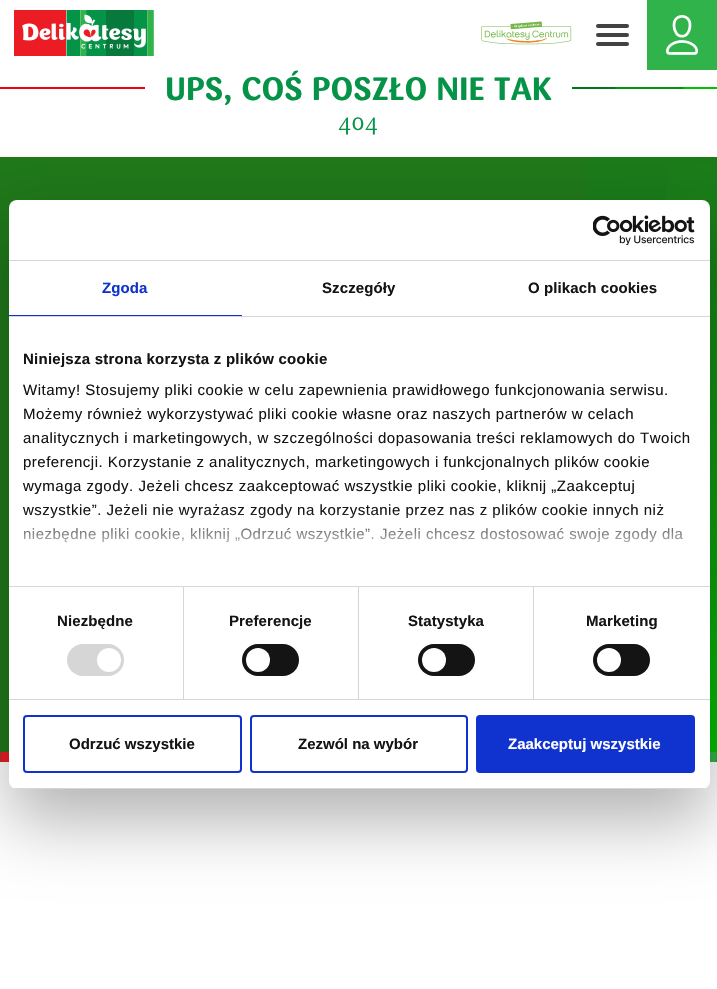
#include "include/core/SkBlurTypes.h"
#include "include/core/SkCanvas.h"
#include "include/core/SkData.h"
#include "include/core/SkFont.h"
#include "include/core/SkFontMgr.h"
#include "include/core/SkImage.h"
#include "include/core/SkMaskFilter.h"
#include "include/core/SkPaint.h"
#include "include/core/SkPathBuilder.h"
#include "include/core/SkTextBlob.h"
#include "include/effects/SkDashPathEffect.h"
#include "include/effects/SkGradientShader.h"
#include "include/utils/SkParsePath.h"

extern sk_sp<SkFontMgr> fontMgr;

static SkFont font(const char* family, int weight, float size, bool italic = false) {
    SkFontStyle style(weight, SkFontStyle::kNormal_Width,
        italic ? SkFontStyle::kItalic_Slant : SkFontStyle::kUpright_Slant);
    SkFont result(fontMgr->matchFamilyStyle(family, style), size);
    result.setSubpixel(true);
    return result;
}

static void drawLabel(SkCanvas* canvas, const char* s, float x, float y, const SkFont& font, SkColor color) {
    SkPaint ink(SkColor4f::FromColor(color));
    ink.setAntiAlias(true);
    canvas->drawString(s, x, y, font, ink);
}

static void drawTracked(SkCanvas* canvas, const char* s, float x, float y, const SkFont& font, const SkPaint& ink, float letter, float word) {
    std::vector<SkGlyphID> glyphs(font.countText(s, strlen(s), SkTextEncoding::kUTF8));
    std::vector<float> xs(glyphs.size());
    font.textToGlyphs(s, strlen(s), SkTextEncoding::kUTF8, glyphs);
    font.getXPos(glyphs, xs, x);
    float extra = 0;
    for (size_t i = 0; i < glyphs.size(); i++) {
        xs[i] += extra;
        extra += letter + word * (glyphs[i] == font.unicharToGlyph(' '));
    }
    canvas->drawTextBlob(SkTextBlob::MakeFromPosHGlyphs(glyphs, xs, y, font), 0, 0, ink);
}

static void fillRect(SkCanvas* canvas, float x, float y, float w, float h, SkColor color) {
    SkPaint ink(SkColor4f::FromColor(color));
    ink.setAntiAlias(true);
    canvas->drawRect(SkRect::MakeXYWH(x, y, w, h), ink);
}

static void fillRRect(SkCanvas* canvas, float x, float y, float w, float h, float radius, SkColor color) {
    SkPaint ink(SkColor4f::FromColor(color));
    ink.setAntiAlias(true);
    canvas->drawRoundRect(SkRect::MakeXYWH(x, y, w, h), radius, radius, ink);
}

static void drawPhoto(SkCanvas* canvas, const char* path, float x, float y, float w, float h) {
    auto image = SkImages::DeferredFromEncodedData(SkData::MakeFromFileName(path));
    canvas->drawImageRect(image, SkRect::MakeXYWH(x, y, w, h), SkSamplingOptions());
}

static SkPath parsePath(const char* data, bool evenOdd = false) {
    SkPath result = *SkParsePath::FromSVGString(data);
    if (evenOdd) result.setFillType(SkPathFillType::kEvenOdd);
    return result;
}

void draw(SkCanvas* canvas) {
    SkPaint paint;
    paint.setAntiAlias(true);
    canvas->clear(0xFFFFFFFF);
    drawPhoto(canvas, "assets/img1.png", 14, 10, 140, 46);
    drawPhoto(canvas, "assets/img2.png", 481, 21, 91, 24);
    fillRRect(canvas, 596, 24, 33, 4, 2, 0xFF424242);
    fillRRect(canvas, 596, 33, 33, 4, 2, 0xFF424242);
    fillRRect(canvas, 596, 42, 33, 4, 2, 0xFF424242);
    fillRect(canvas, 647, 0, 70, 70, 0xFF2FB34A);
    drawPhoto(canvas, "assets/img3.png", 666, 15, 32, 40);
    drawPhoto(canvas, "assets/img4.png", 0, 87, 717, 2);
    fillRect(canvas, 145, 87, 427, 2, 0xFFFFFFFF);
    SkFont font1 = font("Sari", 700, 32);
    drawLabel(canvas, "UPS, COŚ POSZŁO NIE TAK", 165, 100, font1, 0xFF059347);
    SkFont font2 = font("Sari", 400, 24);
    drawLabel(canvas, "404", 338, 130, font2, 0xFF059347);
    fillRect(canvas, 0, 157, 717, 605, 0xFF1F781A);
    {
        const SkColor colors[] = {0xFF00C100, 0xFF08A30B, 0xFF187E18, 0xFF1F781A};
        const float stops[] = {0, 0.26f, 0.76f, 1};
        const SkPoint ends[] = {{691, 759}, {691, 69}};
        paint.setShader(SkGradientShader::MakeLinear(ends, colors, stops, 4, SkTileMode::kClamp));
        paint.setAlpha(255);
    }
    canvas->drawRect(SkRect::MakeXYWH(666, 157, 51, 602), paint);
    {
        const SkColor colors[] = {0xFF009412, 0xFF137D18, 0xFF1F781A};
        const float stops[] = {0, 0.61f, 1};
        const SkPoint ends[] = {{627, 759}, {627, 69}};
        paint.setShader(SkGradientShader::MakeLinear(ends, colors, stops, 3, SkTileMode::kClamp));
        paint.setAlpha(255);
    }
    canvas->drawRect(SkRect::MakeXYWH(587, 157, 79, 43), paint);
    drawPhoto(canvas, "assets/img5.png", 0, 752, 717, 10);
    paint.setShader(nullptr);
    paint.setColor(0x4D000000);
    paint.setMaskFilter(SkMaskFilter::MakeBlur(kNormal_SkBlurStyle, 34));
    canvas->drawRoundRect(SkRect::MakeXYWH(9, 232, 701, 589), 8, 8, paint);
    paint.setMaskFilter(nullptr);
    fillRRect(canvas, 9, 200, 701, 589, 8, 0xFFFFFFFF);
    fillRect(canvas, 9, 260, 701, 1, 0xFFD6D6D6);
    drawPhoto(canvas, "assets/img6.png", 593, 215, 102, 30);
    fillRect(canvas, 9, 316, 701, 1, 0xFFD6D6D6);
    fillRect(canvas, 9, 315, 233, 1, 0xFF1032CF);
    SkFont font3 = font("Liberation Sans", 700, 15);
    paint.setColor(0xFF1032CF);
    drawTracked(canvas, "Zgoda", 102, 293, font3, paint, 0.1f, 0);
    paint.setColor(0xFF141414);
    drawTracked(canvas, "Szczegóły", 322, 293, font3, paint, 0.1f, 0);
    drawTracked(canvas, "O plikach cookies", 528, 293, font3, paint, 0.1f, 0);
    fillRect(canvas, 9, 586, 701, 1, 0xFFD6D6D6);
    drawTracked(canvas, "Niniejsza strona korzysta z plików cookie", 23, 364, font3, paint, 0.25f, 0);
    SkFont font4 = font("Liberation Sans", 400, 15);
    drawTracked(canvas, "Witamy! Stosujemy pliki cookie w celu zapewnienia prawidłowego funkcjonowania serwisu.", 23, 395, font4, paint, 0.5f, 0);
    drawTracked(canvas, "Możemy również wykorzystywać pliki cookie własne oraz naszych partnerów w celach", 23, 419, font4, paint, 0.5f, 0);
    drawTracked(canvas, "analitycznych i marketingowych, w szczególności dopasowania treści reklamowych do Twoich", 23, 443, font4, paint, 0.5f, 0);
    drawTracked(canvas, "preferencji. Korzystanie z analitycznych, marketingowych i funkcjonalnych plików cookie", 23, 467, font4, paint, 0.5f, 0);
    drawTracked(canvas, "wymaga zgody. Jeżeli chcesz zaakceptować wszystkie pliki cookie, kliknij „Zaakceptuj", 23, 491, font4, paint, 0.5f, 0);
    drawTracked(canvas, "wszystkie”. Jeżeli nie wyrażasz zgody na korzystanie przez nas z plików cookie innych niż", 23, 515, font4, paint, 0.5f, 0);
    drawTracked(canvas, "niezbędne pliki cookie, kliknij „Odrzuć wszystkie”. Jeżeli chcesz dostosować swoje zgody dla", 23, 539, font4, paint, 0.5f, 0);
    {
        const SkColor colors[] = {0xFFFFFFFF, 0xCCFFFFFF, 0x00FFFFFF};
        const float stops[] = {0, 0.5f, 1};
        const SkPoint ends[] = {{353, 586}, {353, 511}};
        paint.setShader(SkGradientShader::MakeLinear(ends, colors, stops, 3, SkTileMode::kClamp));
        paint.setAlpha(255);
    }
    canvas->drawRect(SkRect::MakeXYWH(24, 512, 659, 31), paint);
    fillRect(canvas, 9, 699, 701, 1, 0xFFD6D6D6);
    fillRect(canvas, 183, 587, 1, 112, 0xFFD6D6D6);
    paint.setShader(nullptr);
    paint.setColor(0xFF141414);
    drawTracked(canvas, "Niezbędne", 57, 626, font3, paint, 0.1f, 0);
    fillRRect(canvas, 67, 644, 57, 32, 16, 0xFFD6D6D6);
    paint.setColor(0xFFFFFFFF);
    canvas->drawCircle(109, 660, 12, paint);
    fillRect(canvas, 358, 587, 1, 112, 0xFFD6D6D6);
    paint.setColor(0xFF141414);
    drawTracked(canvas, "Preferencje", 229, 626, font3, paint, 0.1f, 0);
    fillRRect(canvas, 242, 644, 57, 32, 16, 0xFF141414);
    paint.setColor(0xFFFFFFFF);
    canvas->drawCircle(258, 660, 12, paint);
    fillRect(canvas, 533, 587, 1, 112, 0xFFD6D6D6);
    paint.setColor(0xFF141414);
    drawTracked(canvas, "Statystyka", 408, 626, font3, paint, 0.1f, 0);
    fillRRect(canvas, 418, 644, 57, 32, 16, 0xFF141414);
    paint.setColor(0xFFFFFFFF);
    canvas->drawCircle(434, 660, 12, paint);
    paint.setColor(0xFF141414);
    drawTracked(canvas, "Marketing", 586, 626, font3, paint, 0.1f, 0);
    fillRRect(canvas, 593, 644, 57, 32, 16, 0xFF141414);
    paint.setColor(0xFFFFFFFF);
    canvas->drawCircle(609, 660, 12, paint);
    canvas->save();
    canvas->clipPath(parsePath("M17 200H702C706.5 200 710 203.5 710 208V781C710 785.5 706.5 789 702 789H17C12.5 789 9 785.5 9 781V208C9 203.5 12.5 200 17 200Z"), true);
    fillRect(canvas, 9, 788, 701, 1, 0xFFD6D6D6);
    canvas->restore();
    paint.setStroke(true);
    paint.setStrokeWidth(2);
    paint.setColor(0xFF1032CF);
    canvas->drawRoundRect(SkRect::MakeXYWH(24, 716, 217, 56), 3, 3, paint);
    drawLabel(canvas, "Odrzuć wszystkie", 69, 749, font3, 0xFF141414);
    canvas->drawRoundRect(SkRect::MakeXYWH(251, 716, 216, 56), 3, 3, paint);
    drawLabel(canvas, "Zezwól na wybór", 298, 749, font3, 0xFF141414);
    paint.setStroke(false);
    canvas->drawRoundRect(SkRect::MakeXYWH(477, 716, 217, 56), 3, 3, paint);
    paint.setStroke(true);
    canvas->drawRoundRect(SkRect::MakeXYWH(477, 716, 217, 56), 3, 3, paint);
    drawLabel(canvas, "Zaakceptuj wszystkie", 508, 749, font3, 0xFFFFFFFF);
}
